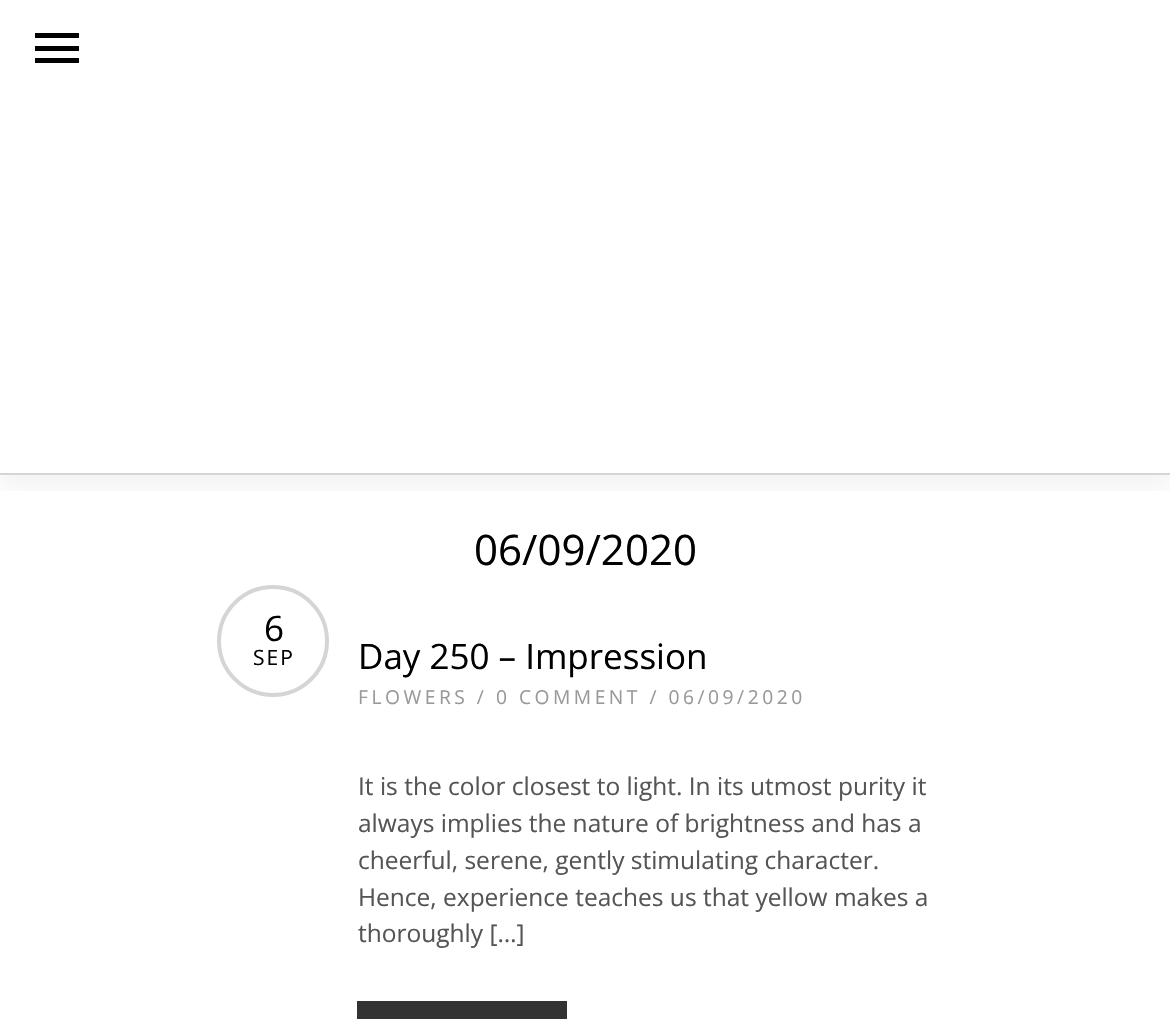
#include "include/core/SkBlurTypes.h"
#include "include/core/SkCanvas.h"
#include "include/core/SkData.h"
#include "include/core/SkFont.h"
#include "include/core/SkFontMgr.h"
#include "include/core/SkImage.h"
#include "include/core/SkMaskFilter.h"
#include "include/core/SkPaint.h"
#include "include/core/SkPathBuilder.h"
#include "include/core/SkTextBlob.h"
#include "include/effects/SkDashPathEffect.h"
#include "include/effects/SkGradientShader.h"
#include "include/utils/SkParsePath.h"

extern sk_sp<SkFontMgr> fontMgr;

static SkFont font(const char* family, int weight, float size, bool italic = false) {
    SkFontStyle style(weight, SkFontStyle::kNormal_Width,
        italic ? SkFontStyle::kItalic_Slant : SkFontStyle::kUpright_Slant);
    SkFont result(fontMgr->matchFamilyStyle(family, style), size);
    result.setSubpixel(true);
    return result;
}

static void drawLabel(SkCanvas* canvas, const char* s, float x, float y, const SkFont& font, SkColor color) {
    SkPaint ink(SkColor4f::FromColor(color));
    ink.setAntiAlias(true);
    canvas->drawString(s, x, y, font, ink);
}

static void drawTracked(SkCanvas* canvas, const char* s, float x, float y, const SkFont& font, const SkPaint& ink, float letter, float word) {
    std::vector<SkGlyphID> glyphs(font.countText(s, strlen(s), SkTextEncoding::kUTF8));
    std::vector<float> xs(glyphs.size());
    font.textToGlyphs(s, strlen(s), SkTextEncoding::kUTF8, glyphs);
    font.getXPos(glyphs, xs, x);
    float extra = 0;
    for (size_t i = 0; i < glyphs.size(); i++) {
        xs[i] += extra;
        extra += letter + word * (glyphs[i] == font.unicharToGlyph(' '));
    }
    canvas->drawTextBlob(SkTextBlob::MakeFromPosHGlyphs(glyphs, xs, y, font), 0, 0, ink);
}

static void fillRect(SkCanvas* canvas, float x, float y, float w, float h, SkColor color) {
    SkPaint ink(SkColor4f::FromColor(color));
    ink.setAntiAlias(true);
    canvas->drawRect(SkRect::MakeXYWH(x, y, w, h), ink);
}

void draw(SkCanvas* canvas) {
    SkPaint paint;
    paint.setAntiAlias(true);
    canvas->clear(0xFFFFFFFF);
    canvas->save();
    canvas->clipRect(SkRect::MakeXYWH(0, 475, 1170, 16));
    paint.setColor(0x0D000000);
    paint.setMaskFilter(SkMaskFilter::MakeBlur(kNormal_SkBlurStyle, 13));
    canvas->drawRect(SkRect::MakeXYWH(0, 14, 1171, 474), paint);
    paint.setMaskFilter(nullptr);
    canvas->restore();
    fillRect(canvas, 0, 473, 1170, 2, 0xFFD5D5D5);
    fillRect(canvas, 35, 33, 44, 5, 0xFF000000);
    fillRect(canvas, 35, 46, 44, 5, 0xFF000000);
    fillRect(canvas, 35, 58, 44, 5, 0xFF000000);
    SkFont font1 = font("Open Sans", 400, 42);
    drawLabel(canvas, "06/09/2020", 474, 565, font1, 0xFF000000);
    paint.setStroke(true);
    paint.setStrokeWidth(4);
    paint.setColor(0xFFD5D5D5);
    canvas->drawCircle(273, 641, 54, paint);
    SkFont font2 = font("Open Sans", 400, 35);
    drawLabel(canvas, "6", 264, 641, font2, 0xFF000000);
    SkFont font3 = font("Open Sans", 400, 21);
    paint.setStroke(false);
    paint.setColor(0xFF000000);
    drawTracked(canvas, "SEP", 253, 665, font3, paint, 2, 0);
    drawLabel(canvas, "Day 250 – Impression", 358, 669, font2, 0xFF000000);
    SkFont font4 = font("Open Sans", 400, 19.25f);
    paint.setColor(0xFF999999);
    drawTracked(canvas, "FLOWERS / 0 COMMENT / 06/09/2020", 358, 704, font4, paint, 3.5f, 0);
    SkFont font5 = font("Open Sans", 400, 24.5f);
    drawLabel(canvas, "It is the color closest to light. In its utmost purity it", 358, 795, font5, 0xFF555555);
    drawLabel(canvas, "always implies the nature of brightness and has a", 358, 832, font5, 0xFF555555);
    drawLabel(canvas, "cheerful, serene, gently stimulating character.", 358, 869, font5, 0xFF555555);
    drawLabel(canvas, "Hence, experience teaches us that yellow makes a", 358, 906, font5, 0xFF555555);
    drawLabel(canvas, "thoroughly […]", 358, 942, font5, 0xFF555555);
    fillRect(canvas, 357, 1001, 210, 18, 0xFF333333);
}
